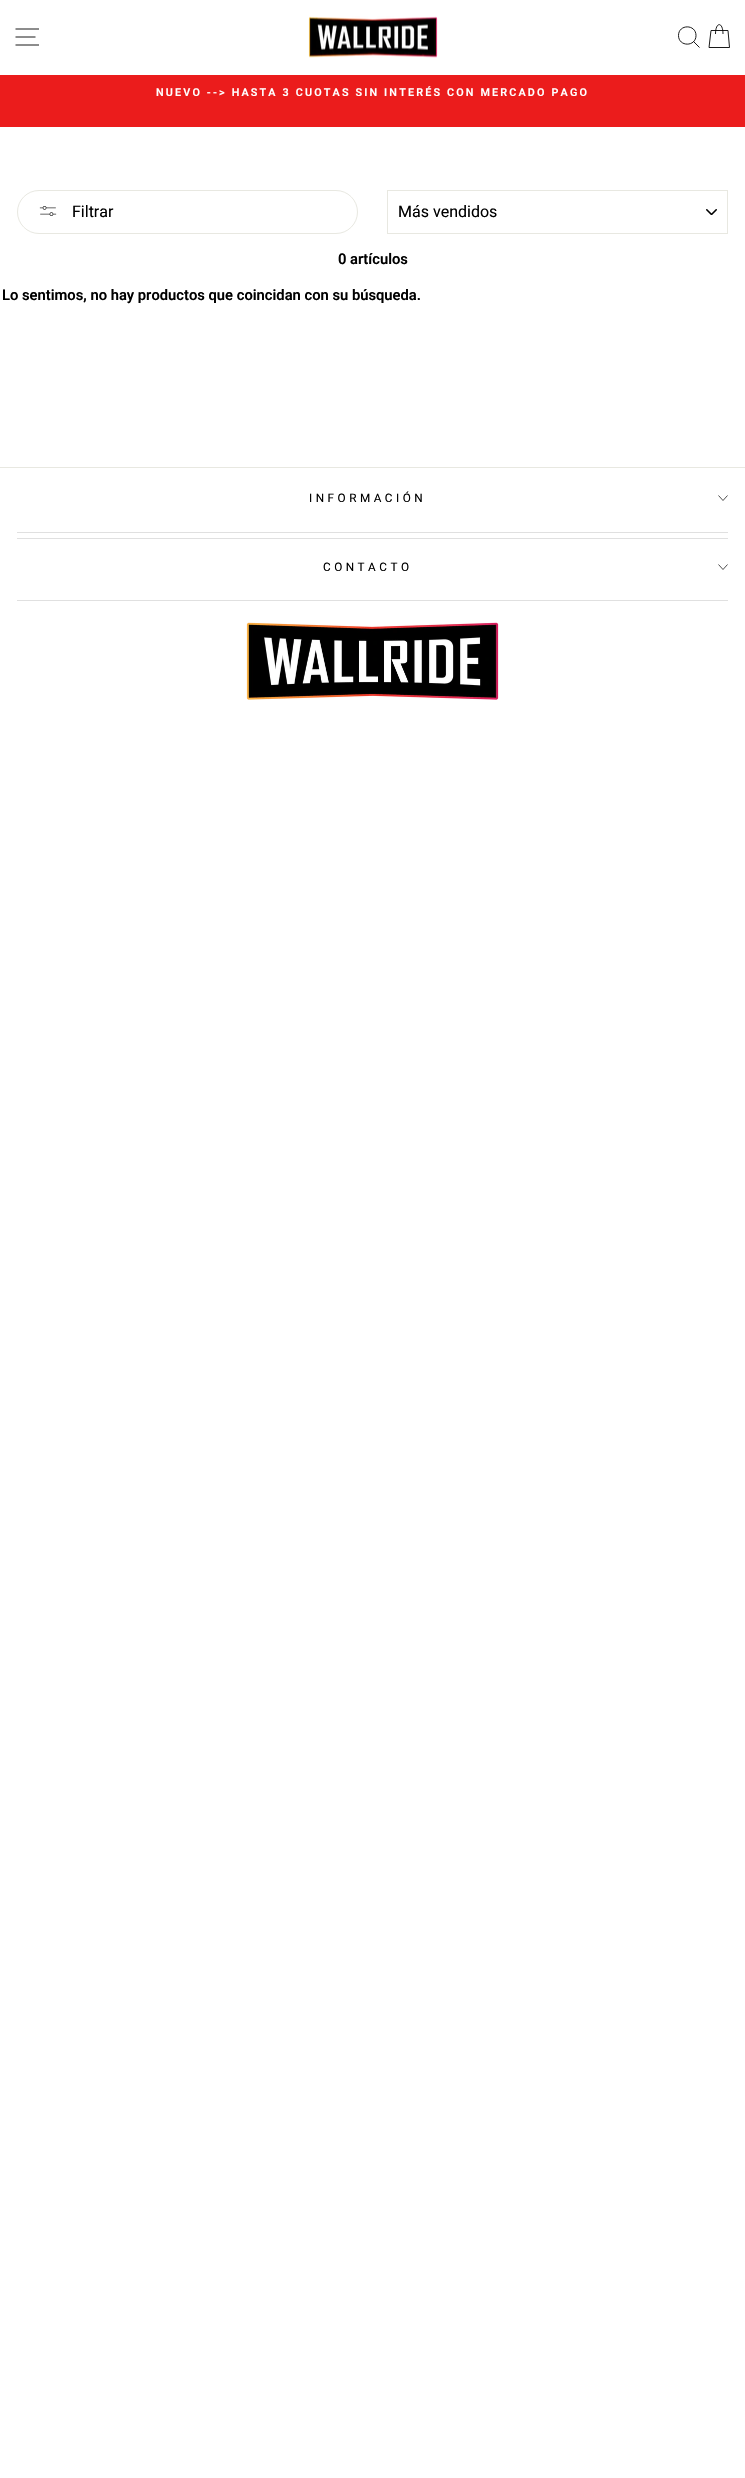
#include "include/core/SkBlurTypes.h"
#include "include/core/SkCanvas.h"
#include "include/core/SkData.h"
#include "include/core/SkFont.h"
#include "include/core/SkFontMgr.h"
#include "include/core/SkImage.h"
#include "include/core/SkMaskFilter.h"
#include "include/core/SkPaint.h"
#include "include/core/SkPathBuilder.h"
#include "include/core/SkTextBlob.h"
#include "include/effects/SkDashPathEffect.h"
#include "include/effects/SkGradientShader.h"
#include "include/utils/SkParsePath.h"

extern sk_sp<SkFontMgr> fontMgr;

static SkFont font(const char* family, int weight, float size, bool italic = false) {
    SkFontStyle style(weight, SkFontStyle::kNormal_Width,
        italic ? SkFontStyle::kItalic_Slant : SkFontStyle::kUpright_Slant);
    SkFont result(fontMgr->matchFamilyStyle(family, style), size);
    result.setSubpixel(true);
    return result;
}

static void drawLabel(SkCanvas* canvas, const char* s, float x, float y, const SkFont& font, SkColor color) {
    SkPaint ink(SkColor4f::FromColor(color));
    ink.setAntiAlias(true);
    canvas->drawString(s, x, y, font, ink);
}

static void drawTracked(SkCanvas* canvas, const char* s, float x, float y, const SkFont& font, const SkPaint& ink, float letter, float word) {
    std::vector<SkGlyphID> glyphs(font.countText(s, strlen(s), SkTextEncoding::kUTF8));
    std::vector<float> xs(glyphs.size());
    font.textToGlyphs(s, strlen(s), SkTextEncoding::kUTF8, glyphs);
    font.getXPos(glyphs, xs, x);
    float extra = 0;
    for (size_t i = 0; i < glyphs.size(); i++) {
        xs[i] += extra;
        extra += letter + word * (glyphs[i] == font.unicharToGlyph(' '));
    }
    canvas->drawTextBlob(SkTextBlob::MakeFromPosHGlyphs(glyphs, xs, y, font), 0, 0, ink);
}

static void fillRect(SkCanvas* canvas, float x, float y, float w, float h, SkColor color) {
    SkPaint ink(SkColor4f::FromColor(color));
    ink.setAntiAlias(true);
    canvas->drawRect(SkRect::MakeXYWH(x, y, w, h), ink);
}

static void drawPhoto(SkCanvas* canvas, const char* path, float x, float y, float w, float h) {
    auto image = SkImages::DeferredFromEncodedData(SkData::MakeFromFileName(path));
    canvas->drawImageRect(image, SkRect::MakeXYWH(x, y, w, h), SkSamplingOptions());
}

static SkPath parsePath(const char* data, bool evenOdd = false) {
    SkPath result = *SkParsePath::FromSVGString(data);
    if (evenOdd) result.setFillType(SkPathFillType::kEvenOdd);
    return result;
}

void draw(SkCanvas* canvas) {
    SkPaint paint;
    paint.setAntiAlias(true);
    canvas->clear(0xFFFFFFFF);
    paint.setStroke(true);
    paint.setStrokeWidth(0.9f);
    paint.setColor(0xFF000000);
    canvas->drawPath(parsePath("M15.5 29H39M15.5 37H35.5M15.5 45H39"), paint);
    drawPhoto(canvas, "assets/img1.png", 308, 16, 130, 42);
    canvas->drawPath(parsePath("M696 35.5C696 47 678.5 47 678.5 35.5C678.5 24 696 24 696 35.5ZM699.5 47.5L693.5 41.5M715.5 34C715.5 21.5 723 21.5 723 34M711 30.5H728L729.5 47.5H709Z"), paint);
    fillRect(canvas, 0, 75, 745, 52, 0xFFEB1C1C);
    SkFont font1 = font("Roboto", 600, 10.8f);
    paint.setStroke(false);
    paint.setColor(0xFFFFFFFF);
    drawTracked(canvas, "NUEVO --> HASTA 3 CUOTAS SIN INTERÉS CON MERCADO PAGO", 156, 96, font1, paint, 2.15f, 0);
    paint.setStroke(true);
    paint.setStrokeWidth(1);
    paint.setColor(0xFFE8E8E1);
    canvas->drawRoundRect(SkRect::MakeXYWH(17.5f, 190.5f, 340, 43), 21.5f, 21.5f, paint);
    drawPhoto(canvas, "assets/img2.png", 39, 206, 18, 10);
    SkFont font2 = font("Roboto", 400, 16);
    drawLabel(canvas, "Filtrar", 72, 217, font2, 0xFF000000);
    drawPhoto(canvas, "assets/img3.png", 706, 209, 11, 6);
    canvas->drawRect(SkRect::MakeXYWH(387.5f, 190.5f, 340, 43), paint);
    drawLabel(canvas, "Más vendidos", 398, 217, font2, 0xFF000000);
    SkFont font3 = font("Roboto", 600, 14.75f);
    drawLabel(canvas, "0 artículos", 338, 264, font3, 0xFF000000);
    drawLabel(canvas, "Lo sentimos, no hay productos que coincidan con su búsqueda.", 2, 300, font3, 0xFF000000);
    fillRect(canvas, 0, 467, 745, 1, 0xFFE8E8E1);
    SkFont font4 = font("Roboto", 400, 11.75f);
    paint.setStroke(false);
    paint.setColor(0xFF000000);
    drawTracked(canvas, "INFORMACIÓN", 309, 502, font4, paint, 3.5f, 0);
    paint.setStroke(true);
    paint.setStrokeWidth(0.7f);
    canvas->drawPath(parsePath("M718.5 495.5L723 500.5L727.5 495.5"), paint);
    fillRect(canvas, 17, 532, 711, 1, 0xFFE0E0E0);
    fillRect(canvas, 17, 538, 711, 1, 0xFFE0E0E0);
    paint.setStroke(false);
    drawTracked(canvas, "CONTACTO", 323, 571, font4, paint, 3.5f, 0);
    paint.setStroke(true);
    canvas->drawPath(parsePath("M718.5 564.5L723 569.5L727.5 564.5"), paint);
    fillRect(canvas, 17, 600, 711, 1, 0xFFE0E0E0);
    drawPhoto(canvas, "assets/img4.png", 246, 622, 253, 78);
}
